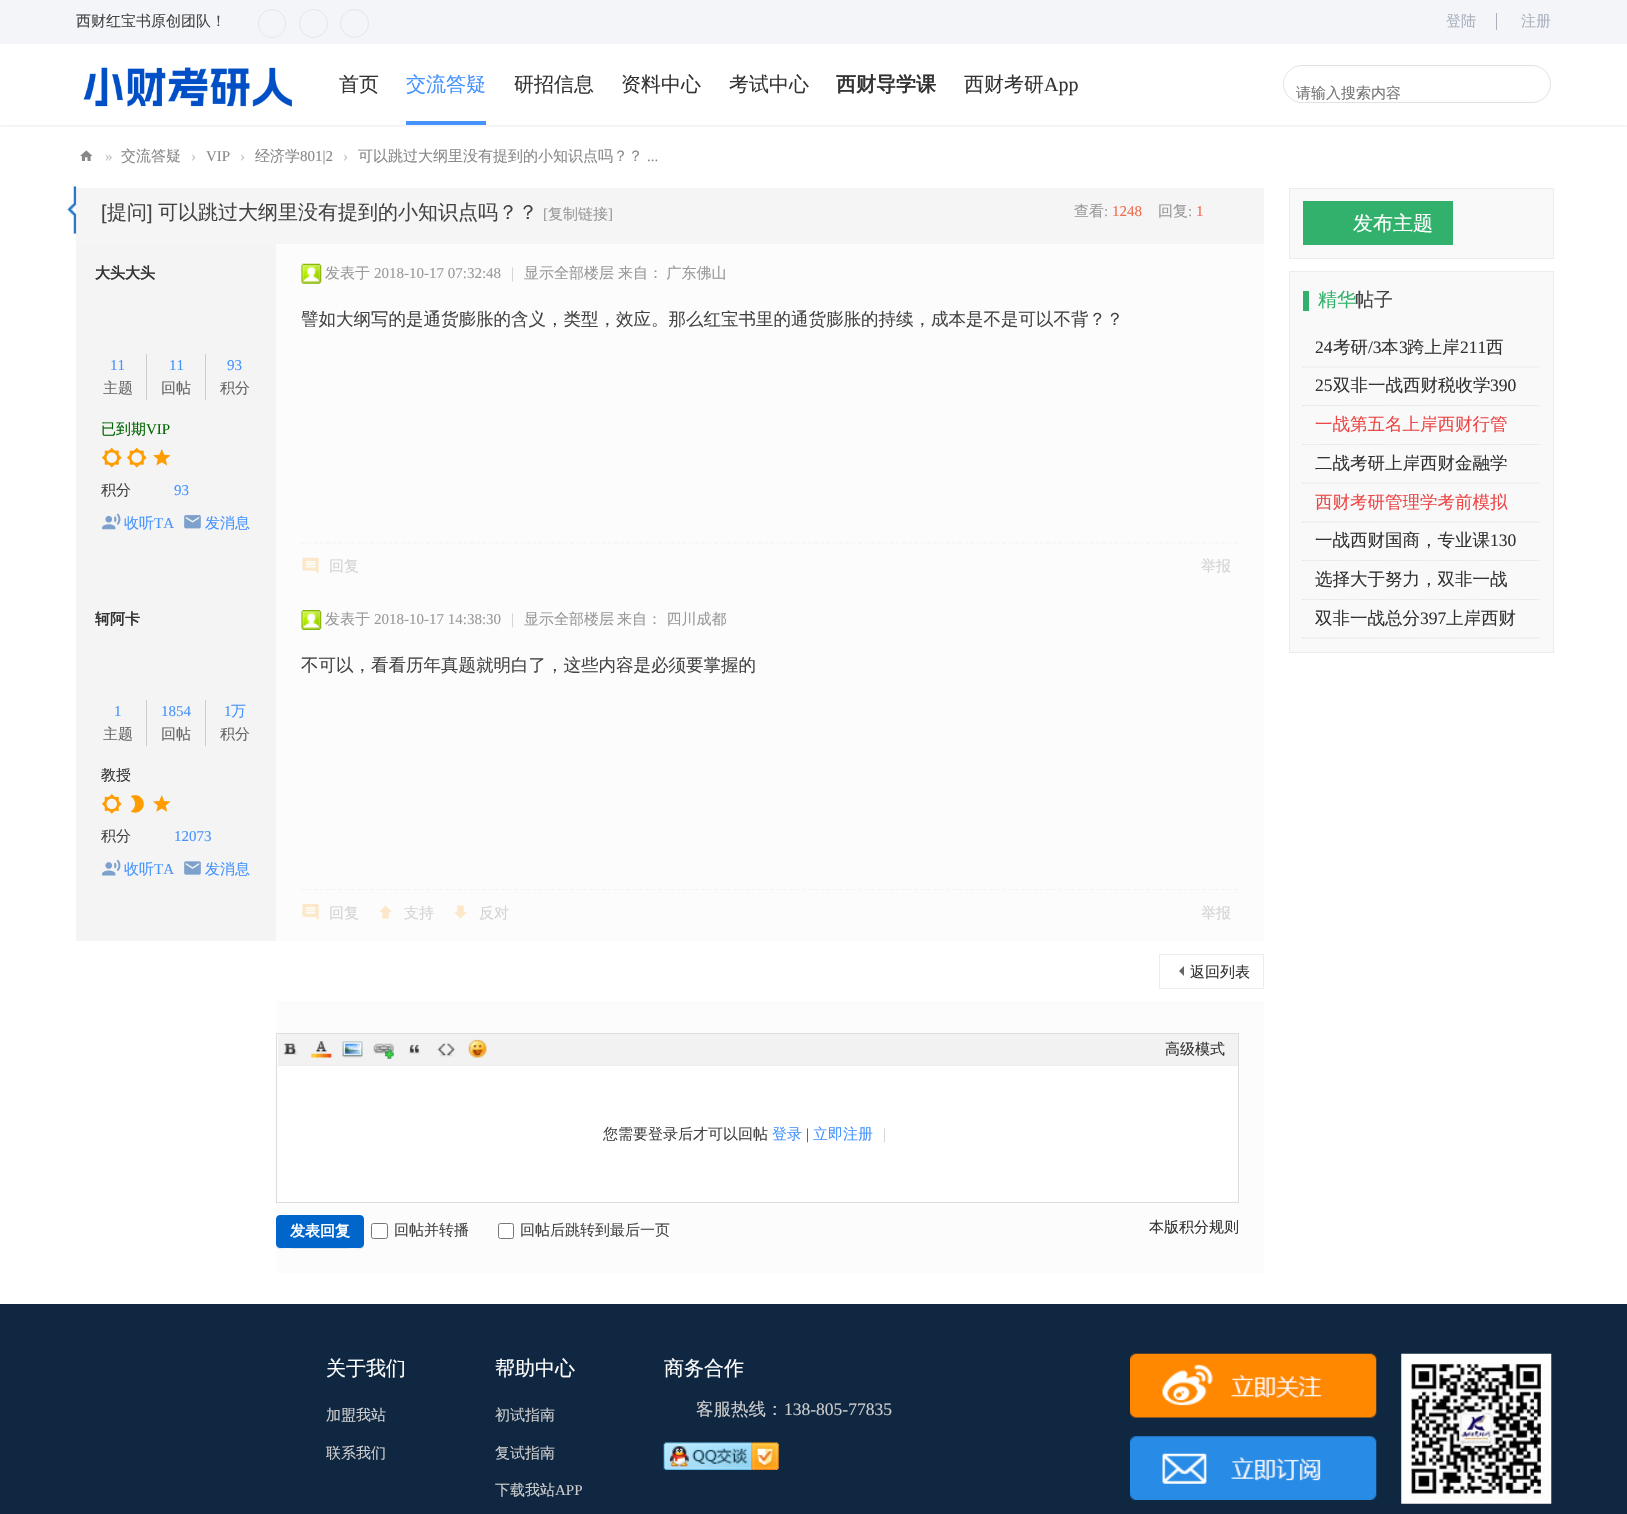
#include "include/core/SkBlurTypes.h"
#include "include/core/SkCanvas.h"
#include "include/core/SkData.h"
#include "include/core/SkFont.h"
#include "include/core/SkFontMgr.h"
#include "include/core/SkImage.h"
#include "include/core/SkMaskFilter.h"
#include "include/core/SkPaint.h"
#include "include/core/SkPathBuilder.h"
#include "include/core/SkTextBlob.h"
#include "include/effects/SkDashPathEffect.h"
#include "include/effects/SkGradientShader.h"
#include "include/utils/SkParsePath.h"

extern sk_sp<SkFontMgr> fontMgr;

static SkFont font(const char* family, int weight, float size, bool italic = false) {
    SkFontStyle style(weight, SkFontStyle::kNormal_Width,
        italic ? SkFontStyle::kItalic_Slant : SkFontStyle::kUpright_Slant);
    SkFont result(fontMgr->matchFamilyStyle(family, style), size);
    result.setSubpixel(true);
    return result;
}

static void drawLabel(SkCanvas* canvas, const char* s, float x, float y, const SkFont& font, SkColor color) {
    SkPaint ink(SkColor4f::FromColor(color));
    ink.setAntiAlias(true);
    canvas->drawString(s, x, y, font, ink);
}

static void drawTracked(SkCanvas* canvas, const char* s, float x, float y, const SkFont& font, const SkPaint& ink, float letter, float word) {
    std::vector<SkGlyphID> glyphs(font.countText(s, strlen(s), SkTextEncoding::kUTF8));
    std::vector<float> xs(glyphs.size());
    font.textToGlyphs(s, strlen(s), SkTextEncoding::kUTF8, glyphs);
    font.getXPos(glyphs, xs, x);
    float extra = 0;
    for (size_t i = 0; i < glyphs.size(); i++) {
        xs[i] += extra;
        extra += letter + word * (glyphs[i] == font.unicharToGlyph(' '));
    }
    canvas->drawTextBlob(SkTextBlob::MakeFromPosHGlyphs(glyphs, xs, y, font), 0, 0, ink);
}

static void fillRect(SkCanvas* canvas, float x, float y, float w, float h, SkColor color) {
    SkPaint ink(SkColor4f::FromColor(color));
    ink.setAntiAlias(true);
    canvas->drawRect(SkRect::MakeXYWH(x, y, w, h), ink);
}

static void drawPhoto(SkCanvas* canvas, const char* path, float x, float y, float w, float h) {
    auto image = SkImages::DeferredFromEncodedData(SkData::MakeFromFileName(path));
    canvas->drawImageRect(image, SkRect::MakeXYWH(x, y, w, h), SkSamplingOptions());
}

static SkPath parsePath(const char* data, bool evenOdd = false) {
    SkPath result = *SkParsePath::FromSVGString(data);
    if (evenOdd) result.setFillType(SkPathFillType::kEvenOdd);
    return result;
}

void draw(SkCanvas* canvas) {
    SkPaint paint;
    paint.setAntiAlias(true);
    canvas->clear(0xFFFFFFFF);
    fillRect(canvas, 0, 0, 1627, 44, 0xFFF4F5F9);
    SkFont font1 = font("WenQuanYi Zen Hei", 500, 15);
    drawLabel(canvas, "西财红宝书原创团队！", 76, 26, font1, 0xFF444444);
    paint.setStroke(true);
    paint.setStrokeWidth(1);
    paint.setColor(0xFFE6E6E6);
    canvas->drawRoundRect(SkRect::MakeXYWH(258.5f, 9.5f, 27, 28), 13.5f, 13.5f, paint);
    canvas->drawCircle(313.5f, 23.5f, 14, paint);
    canvas->drawCircle(354.5f, 23.5f, 14, paint);
    drawLabel(canvas, "登陆", 1446, 26, font1, 0xFFAAB2BD);
    fillRect(canvas, 1496, 13, 1, 17, 0xFFAAB2BD);
    drawLabel(canvas, "注册", 1521, 26, font1, 0xFFAAB2BD);
    canvas->save();
    canvas->clipRect(SkRect::MakeXYWH(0, 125, 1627, 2));
    paint.setStroke(false);
    paint.setColor(0x14000000);
    paint.setMaskFilter(SkMaskFilter::MakeBlur(kNormal_SkBlurStyle, 2));
    canvas->drawRect(SkRect::MakeXYWH(0, 45, 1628, 81), paint);
    paint.setMaskFilter(nullptr);
    canvas->restore();
    drawPhoto(canvas, "assets/img1.png", 83, 67, 209, 40);
    SkFont font2 = font("WenQuanYi Zen Hei", 500, 20);
    drawLabel(canvas, "首页", 339, 91, font2, 0xFF333333);
    drawLabel(canvas, "交流答疑", 406, 91, font2, 0xFF4593FF);
    fillRect(canvas, 406, 121, 80, 4, 0xFF4593FF);
    drawLabel(canvas, "研招信息", 514, 91, font2, 0xFF333333);
    drawLabel(canvas, "资料中心", 621, 91, font2, 0xFF333333);
    drawLabel(canvas, "考试中心", 729, 91, font2, 0xFF333333);
    SkFont font3 = font("WenQuanYi Zen Hei", 700, 20);
    drawLabel(canvas, "西财导学课", 836, 91, font3, 0xFF333333);
    drawLabel(canvas, "西财考研", 964, 91, font2, 0xFF333333);
    SkFont font4 = font("Liberation Serif", 400, 20);
    drawLabel(canvas, "App", 1044, 91, font4, 0xFF333333);
    paint.setStroke(true);
    paint.setColor(0xFFE2E2E2);
    canvas->drawRoundRect(SkRect::MakeXYWH(1283.5f, 65.5f, 267, 37), 18.5f, 18.5f, paint);
    canvas->save();
    canvas->clipPath(parsePath("M1301.5 66H1532.5C1542 66 1550 74 1550 83.5C1550 93 1542 101 1532.5 101H1301.5C1292 101 1284 93 1284 83.5C1284 74 1292 66 1301.5 66Z"), true);
    paint.setStroke(false);
    paint.setColor(0xFFFFFFFF);
    canvas->drawPath(parsePath("M1284 69H1508V101H1301.5C1292 101 1284 93 1284 83.5Z"), paint);
    canvas->restore();
    drawLabel(canvas, "请输入搜索内容", 1296, 98, font1, 0xFF757575);
    drawPhoto(canvas, "assets/img2.png", 80, 150, 13, 11);
    SkFont font5 = font("Liberation Serif", 400, 15);
    drawLabel(canvas, "»", 105, 161, font5, 0xFFBDBDBD);
    drawLabel(canvas, "交流答疑", 121, 161, font1, 0xFF888888);
    drawLabel(canvas, "›", 191, 161, font5, 0xFFBDBDBD);
    drawLabel(canvas, "VIP", 206, 161, font5, 0xFF888888);
    drawLabel(canvas, "›", 240, 161, font5, 0xFFBDBDBD);
    drawLabel(canvas, "经济学", 255, 161, font1, 0xFF888888);
    drawLabel(canvas, "801|2", 300, 161, font5, 0xFF888888);
    drawLabel(canvas, "›", 343, 161, font5, 0xFFBDBDBD);
    drawLabel(canvas, "可以跳过大纲里没有提到的小知识点吗？？", 358, 161, font1, 0xFF888888);
    drawLabel(canvas, "...", 647, 161, font5, 0xFF888888);
    fillRect(canvas, 76, 188, 1188, 56, 0xFFF5F5F5);
    drawPhoto(canvas, "assets/img3.png", 67, 186, 10, 48);
    SkFont font6 = font("Liberation Sans", 400, 20);
    drawLabel(canvas, "[", 101, 219, font6, 0xFF444444);
    drawLabel(canvas, "提问", 107, 219, font2, 0xFF444444);
    drawLabel(canvas, "]", 147, 219, font6, 0xFF444444);
    drawLabel(canvas, "可以跳过大纲里没有提到的小知识点吗？？", 158, 219, font2, 0xFF444444);
    drawLabel(canvas, "[", 543, 219, font5, 0xFF999999);
    drawLabel(canvas, "复制链接", 548, 219, font1, 0xFF999999);
    drawLabel(canvas, "]", 608, 219, font5, 0xFF999999);
    drawLabel(canvas, "查看", 1074, 216, font1, 0xFF999999);
    drawLabel(canvas, ":", 1104, 216, font5, 0xFF999999);
    drawLabel(canvas, "1248", 1112, 216, font5, 0xFFF26C4F);
    drawLabel(canvas, "回复", 1158, 216, font1, 0xFF999999);
    drawLabel(canvas, ":", 1188, 216, font5, 0xFF999999);
    drawLabel(canvas, "1", 1196, 216, font5, 0xFFF26C4F);
    fillRect(canvas, 76, 244, 200, 697, 0xFFF4F4F4);
    fillRect(canvas, 276, 244, 988, 345, 0xFFFCFCFC);
    SkFont font7 = font("WenQuanYi Zen Hei", 700, 15);
    drawLabel(canvas, "大头大头", 95, 278, font7, 0xFF333333);
    fillRect(canvas, 146, 354, 1, 46, 0xFFCCCCCC);
    drawLabel(canvas, "11", 110, 370, font5, 0xFF4593FF);
    drawLabel(canvas, "主题", 103, 393, font1, 0xFF666666);
    fillRect(canvas, 205, 354, 1, 46, 0xFFCCCCCC);
    drawLabel(canvas, "11", 169, 370, font5, 0xFF4593FF);
    drawLabel(canvas, "回帖", 161, 393, font1, 0xFF666666);
    drawLabel(canvas, "93", 227, 370, font5, 0xFF4593FF);
    drawLabel(canvas, "积分", 220, 393, font1, 0xFF666666);
    drawLabel(canvas, "已到期", 101, 434, font1, 0xFF006400);
    drawLabel(canvas, "VIP", 146, 434, font5, 0xFF006400);
    drawPhoto(canvas, "assets/img4.png", 102, 447, 20, 21);
    drawPhoto(canvas, "assets/img4.png", 127, 447, 20, 21);
    drawPhoto(canvas, "assets/img5.png", 153, 449, 18, 17);
    drawLabel(canvas, "积分", 101, 495, font1, 0xFF444444);
    drawLabel(canvas, "93", 174, 495, font5, 0xFF4593FF);
    drawPhoto(canvas, "assets/img6.png", 102, 513, 19, 17);
    drawLabel(canvas, "收听", 124, 528, font1, 0xFF4593FF);
    drawLabel(canvas, "TA", 154, 528, font5, 0xFF4593FF);
    drawPhoto(canvas, "assets/img7.png", 184, 515, 17, 14);
    drawLabel(canvas, "发消息", 205, 528, font1, 0xFF4593FF);
    drawPhoto(canvas, "assets/img8.png", 301, 263, 21, 21);
    drawLabel(canvas, "发表于", 325, 278, font1, 0xFF999999);
    drawLabel(canvas, "2018-10-17 07:32:48", 374, 278, font5, 0xFF999999);
    drawLabel(canvas, "|", 511, 278, font5, 0xFFCCCCCC);
    drawLabel(canvas, "显示全部楼层", 524, 278, font1, 0xFF999999);
    paint.setColor(0xFF999999);
    drawTracked(canvas, "来自： 广东佛山", 618, 278, font1, paint, 0, -1);
    SkFont font8 = font("WenQuanYi Zen Hei", 500, 17.5f);
    drawLabel(canvas, "譬如大纲写的是通货膨胀的含义，类型，效应。那么红宝书里的通货膨胀的持续，成本是不是可以不背？？", 301, 325, font8, 0xFF444444);
    paint.setStroke(true);
    paint.setStrokeWidth(1.2f);
    paint.setColor(0xFFF3F3F3);
    paint.setPathEffect(SkDashPathEffect::Make({{3.75f, 2.51f}}, 0));
    canvas->drawPath(parsePath("M301 543H1239"), paint);
    paint.setPathEffect(nullptr);
    drawPhoto(canvas, "assets/img9.png", 302, 557, 17, 17);
    drawLabel(canvas, "回复", 329, 571, font1, 0xFFD4D4D4);
    drawLabel(canvas, "举报", 1201, 571, font1, 0xFFD4D4D4);
    fillRect(canvas, 276, 589, 988, 352, 0xFFFCFCFC);
    drawLabel(canvas, "轲阿卡", 95, 624, font7, 0xFF333333);
    fillRect(canvas, 146, 700, 1, 46, 0xFFCCCCCC);
    drawLabel(canvas, "1", 114, 716, font5, 0xFF4593FF);
    drawLabel(canvas, "主题", 103, 739, font1, 0xFF666666);
    fillRect(canvas, 205, 700, 1, 46, 0xFFCCCCCC);
    drawLabel(canvas, "1854", 161, 716, font5, 0xFF4593FF);
    drawLabel(canvas, "回帖", 161, 739, font1, 0xFF666666);
    drawLabel(canvas, "1", 224, 716, font5, 0xFF4593FF);
    drawLabel(canvas, "万", 231, 716, font1, 0xFF4593FF);
    drawLabel(canvas, "积分", 220, 739, font1, 0xFF666666);
    drawLabel(canvas, "教授", 101, 780, font1, 0xFF333333);
    drawPhoto(canvas, "assets/img10.png", 102, 794, 20, 20);
    drawPhoto(canvas, "assets/img11.png", 130, 795, 14, 18);
    drawPhoto(canvas, "assets/img12.png", 153, 795, 18, 17);
    drawLabel(canvas, "积分", 101, 841, font1, 0xFF444444);
    drawLabel(canvas, "12073", 174, 841, font5, 0xFF4593FF);
    drawPhoto(canvas, "assets/img13.png", 102, 859, 19, 17);
    drawLabel(canvas, "收听", 124, 874, font1, 0xFF4593FF);
    drawLabel(canvas, "TA", 154, 874, font5, 0xFF4593FF);
    drawPhoto(canvas, "assets/img14.png", 184, 861, 17, 14);
    drawLabel(canvas, "发消息", 205, 874, font1, 0xFF4593FF);
    drawPhoto(canvas, "assets/img15.png", 301, 610, 21, 20);
    drawLabel(canvas, "发表于", 325, 624, font1, 0xFF999999);
    drawLabel(canvas, "2018-10-17 14:38:30", 374, 624, font5, 0xFF999999);
    drawLabel(canvas, "|", 511, 624, font5, 0xFFCCCCCC);
    drawLabel(canvas, "显示全部楼层", 524, 624, font1, 0xFF999999);
    drawLabel(canvas, "来自： 四川成都", 617, 624, font1, 0xFF999999);
    drawLabel(canvas, "不可以，看看历年真题就明白了，这些内容是必须要掌握的", 301, 671, font8, 0xFF444444);
    paint.setPathEffect(SkDashPathEffect::Make({{3.75f, 2.51f}}, 0));
    canvas->drawPath(parsePath("M301 889.5H1239"), paint);
    paint.setPathEffect(nullptr);
    drawPhoto(canvas, "assets/img16.png", 302, 904, 17, 16);
    drawLabel(canvas, "回复", 329, 918, font1, 0xFFD4D4D4);
    drawPhoto(canvas, "assets/img17.png", 379, 905, 13, 14);
    drawLabel(canvas, "支持", 404, 918, font1, 0xFFD4D4D4);
    drawPhoto(canvas, "assets/img18.png", 454, 905, 13, 14);
    drawLabel(canvas, "反对", 479, 918, font1, 0xFFD4D4D4);
    drawLabel(canvas, "举报", 1201, 918, font1, 0xFFD4D4D4);
    paint.setStrokeWidth(1);
    paint.setColor(0xFFEDEDED);
    canvas->drawRect(SkRect::MakeXYWH(1159.5f, 954.5f, 104, 34), paint);
    paint.setStroke(false);
    paint.setColor(0xFF666666);
    canvas->drawPath(parsePath("M1184 966V976L1179 971Z"), paint);
    drawLabel(canvas, "返回列表", 1190, 977, font1, 0xFF333333);
    fillRect(canvas, 276, 1001, 988, 272, 0xFFFCFCFC);
    paint.setStroke(true);
    paint.setColor(0xFFDDDDDD);
    canvas->drawRect(SkRect::MakeXYWH(276.5f, 1033.5f, 962, 169), paint);
    fillRect(canvas, 278, 1034, 960, 31, 0xFFF2F2F2);
    fillRect(canvas, 278, 1065, 960, 1, 0xFFEEEEEE);
    drawPhoto(canvas, "assets/img19.png", 283, 1043, 15, 12);
    drawPhoto(canvas, "assets/img20.png", 311, 1041, 21, 17);
    drawPhoto(canvas, "assets/img21.png", 342, 1041, 21, 17);
    drawPhoto(canvas, "assets/img22.png", 373, 1043, 22, 16);
    drawPhoto(canvas, "assets/img23.png", 408, 1044, 13, 10);
    drawPhoto(canvas, "assets/img24.png", 437, 1043, 19, 14);
    drawPhoto(canvas, "assets/img25.png", 468, 1039, 19, 19);
    drawLabel(canvas, "高级模式", 1165, 1054, font1, 0xFF333333);
    fillRect(canvas, 278, 1066, 960, 135, 0xFFFFFFFF);
    drawLabel(canvas, "您需要登录后才可以回帖", 603, 1139, font1, 0xFF444444);
    drawLabel(canvas, "登录", 772, 1139, font1, 0xFF4593FF);
    drawLabel(canvas, "|", 806, 1139, font5, 0xFF444444);
    drawLabel(canvas, "立即注册", 813, 1139, font1, 0xFF4593FF);
    drawLabel(canvas, "|", 883, 1139, font5, 0xFFCCCCCC);
    paint.setStroke(false);
    paint.setColor(0xFFE5E5E5);
    canvas->drawPath(parsePath("M276 1219V1237C276 1252 276 1249 293 1249H347C364 1249 364 1252 364 1237V1219V1245C362 1251 347 1248 347 1248H293C293 1248 278 1251 276 1245Z"), paint);
    paint.setColor(0xFF0066CC);
    canvas->drawRoundRect(SkRect::MakeXYWH(276.5f, 1215.5f, 87, 32), 3.5f, 3.5f, paint);
    paint.setStroke(true);
    canvas->drawRoundRect(SkRect::MakeXYWH(276.5f, 1215.5f, 87, 32), 3.5f, 3.5f, paint);
    drawLabel(canvas, "发表回复", 290, 1236, font7, 0xFFFFFFFF);
    paint.setStroke(false);
    paint.setColor(0xFFFFFFFF);
    canvas->drawRoundRect(SkRect::MakeXYWH(371.5f, 1223.5f, 16, 15), 2, 2, paint);
    paint.setStroke(true);
    paint.setColor(0xFF767676);
    canvas->drawRoundRect(SkRect::MakeXYWH(371.5f, 1223.5f, 16, 15), 2, 2, paint);
    drawLabel(canvas, "回帖并转播", 394, 1235, font1, 0xFF444444);
    paint.setStroke(false);
    paint.setColor(0xFFFFFFFF);
    canvas->drawRoundRect(SkRect::MakeXYWH(498.5f, 1223.5f, 15, 15), 2, 2, paint);
    paint.setStroke(true);
    paint.setColor(0xFF767676);
    canvas->drawRoundRect(SkRect::MakeXYWH(498.5f, 1223.5f, 15, 15), 2, 2, paint);
    drawLabel(canvas, "回帖后跳转到最后一页", 520, 1235, font1, 0xFF444444);
    drawLabel(canvas, "本版积分规则", 1149, 1232, font1, 0xFF333333);
    paint.setStroke(false);
    paint.setColor(0xFFF9F9F9);
    canvas->drawRect(SkRect::MakeXYWH(1289.5f, 188.5f, 264, 70), paint);
    paint.setStroke(true);
    paint.setColor(0xFFECECEC);
    canvas->drawRect(SkRect::MakeXYWH(1289.5f, 188.5f, 264, 70), paint);
    fillRect(canvas, 1303, 201, 150, 44, 0xFF32B16C);
    drawLabel(canvas, "发布主题", 1353, 230, font2, 0xFFFFFFFF);
    paint.setStroke(false);
    paint.setColor(0xFFF9F9F9);
    canvas->drawRect(SkRect::MakeXYWH(1289.5f, 271.5f, 264, 381), paint);
    paint.setStroke(true);
    paint.setColor(0xFFECECEC);
    canvas->drawRect(SkRect::MakeXYWH(1289.5f, 271.5f, 264, 381), paint);
    fillRect(canvas, 1303, 291, 6, 20, 0xFF32B16C);
    SkFont font9 = font("WenQuanYi Zen Hei", 500, 19);
    drawLabel(canvas, "精华", 1318, 306, font9, 0xFF32B16C);
    drawLabel(canvas, "帖子", 1355, 306, font9, 0xFF444444);
    paint.setStrokeWidth(1.2f);
    paint.setColor(0xFFDDDDDD);
    paint.setPathEffect(SkDashPathEffect::Make({{1.25f, 1.25f}}, 0));
    canvas->drawPath(parsePath("M1302.5 367H1540"), paint);
    paint.setPathEffect(nullptr);
    SkFont font10 = font("Liberation Serif", 400, 17.5f);
    drawLabel(canvas, "24", 1315, 353, font10, 0xFF333333);
    drawLabel(canvas, "考研", 1333, 353, font8, 0xFF333333);
    drawLabel(canvas, "/3", 1368, 353, font10, 0xFF333333);
    drawLabel(canvas, "本", 1381, 353, font8, 0xFF333333);
    drawLabel(canvas, "3", 1399, 353, font10, 0xFF333333);
    drawLabel(canvas, "跨上岸", 1407, 353, font8, 0xFF333333);
    drawLabel(canvas, "211", 1460, 353, font10, 0xFF333333);
    drawLabel(canvas, "西", 1486, 353, font8, 0xFF333333);
    paint.setPathEffect(SkDashPathEffect::Make({{1.25f, 1.25f}}, 0));
    canvas->drawPath(parsePath("M1302.5 405.5H1540"), paint);
    paint.setPathEffect(nullptr);
    drawLabel(canvas, "25", 1315, 391, font10, 0xFF333333);
    drawLabel(canvas, "双非一战西财税收学", 1333, 391, font8, 0xFF333333);
    drawLabel(canvas, "390", 1490, 391, font10, 0xFF333333);
    paint.setPathEffect(SkDashPathEffect::Make({{1.25f, 1.25f}}, 0));
    canvas->drawPath(parsePath("M1302.5 444.5H1540"), paint);
    paint.setPathEffect(nullptr);
    drawLabel(canvas, "一战第五名上岸西财行管", 1315, 430, font8, 0xFFED4747);
    paint.setPathEffect(SkDashPathEffect::Make({{1.25f, 1.25f}}, 0));
    canvas->drawPath(parsePath("M1302.5 483H1540"), paint);
    paint.setPathEffect(nullptr);
    drawLabel(canvas, "二战考研上岸西财金融学", 1315, 469, font8, 0xFF333333);
    paint.setPathEffect(SkDashPathEffect::Make({{1.25f, 1.25f}}, 0));
    canvas->drawPath(parsePath("M1302.5 522H1540"), paint);
    paint.setPathEffect(nullptr);
    drawLabel(canvas, "西财考研管理学考前模拟", 1315, 508, font8, 0xFFED4747);
    paint.setPathEffect(SkDashPathEffect::Make({{1.25f, 1.25f}}, 0));
    canvas->drawPath(parsePath("M1302.5 560.5H1540"), paint);
    paint.setPathEffect(nullptr);
    drawLabel(canvas, "一战西财国商，专业课", 1315, 546, font8, 0xFF333333);
    drawLabel(canvas, "130", 1490, 546, font10, 0xFF333333);
    paint.setPathEffect(SkDashPathEffect::Make({{1.25f, 1.25f}}, 0));
    canvas->drawPath(parsePath("M1302.5 599.5H1540"), paint);
    paint.setPathEffect(nullptr);
    drawLabel(canvas, "选择大于努力，双非一战", 1315, 585, font8, 0xFF333333);
    paint.setPathEffect(SkDashPathEffect::Make({{1.25f, 1.25f}}, 0));
    canvas->drawPath(parsePath("M1302.5 638H1540"), paint);
    paint.setPathEffect(nullptr);
    drawLabel(canvas, "双非一战总分", 1315, 624, font8, 0xFF333333);
    drawLabel(canvas, "397", 1420, 624, font10, 0xFF333333);
    drawLabel(canvas, "上岸西财", 1446, 624, font8, 0xFF333333);
    fillRect(canvas, 0, 1304, 1627, 210, 0xFF102741);
    drawLabel(canvas, "关于我们", 326, 1375, font2, 0xFFFFFFFF);
    drawLabel(canvas, "加盟我站", 326, 1420, font1, 0xFFCCCCCC);
    drawLabel(canvas, "联系我们", 326, 1458, font1, 0xFFCCCCCC);
    drawLabel(canvas, "帮助中心", 495, 1375, font2, 0xFFFFFFFF);
    drawLabel(canvas, "初试指南", 495, 1420, font1, 0xFFCCCCCC);
    drawLabel(canvas, "复试指南", 495, 1458, font1, 0xFFCCCCCC);
    drawLabel(canvas, "下载我站", 495, 1495, font1, 0xFFCCCCCC);
    drawLabel(canvas, "APP", 555, 1495, font5, 0xFFCCCCCC);
    drawLabel(canvas, "商务合作", 664, 1375, font2, 0xFFFFFFFF);
    drawLabel(canvas, "客服热线：", 696, 1415, font8, 0xFFCCCCCC);
    drawLabel(canvas, "138-805-77835", 784, 1415, font10, 0xFFCCCCCC);
    drawPhoto(canvas, "assets/img26.png", 663, 1442, 116, 28);
    drawPhoto(canvas, "assets/img27.png", 1130, 1353, 247, 65);
    drawPhoto(canvas, "assets/img28.png", 1130, 1436, 247, 64);
    drawPhoto(canvas, "assets/img29.png", 1401, 1353, 151, 151);
}
